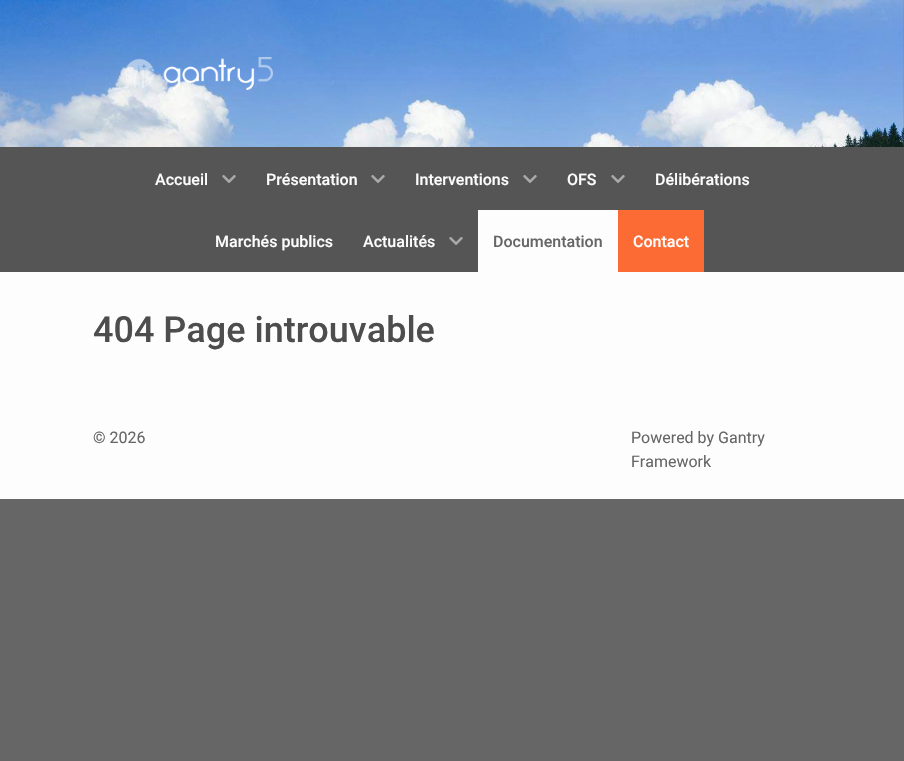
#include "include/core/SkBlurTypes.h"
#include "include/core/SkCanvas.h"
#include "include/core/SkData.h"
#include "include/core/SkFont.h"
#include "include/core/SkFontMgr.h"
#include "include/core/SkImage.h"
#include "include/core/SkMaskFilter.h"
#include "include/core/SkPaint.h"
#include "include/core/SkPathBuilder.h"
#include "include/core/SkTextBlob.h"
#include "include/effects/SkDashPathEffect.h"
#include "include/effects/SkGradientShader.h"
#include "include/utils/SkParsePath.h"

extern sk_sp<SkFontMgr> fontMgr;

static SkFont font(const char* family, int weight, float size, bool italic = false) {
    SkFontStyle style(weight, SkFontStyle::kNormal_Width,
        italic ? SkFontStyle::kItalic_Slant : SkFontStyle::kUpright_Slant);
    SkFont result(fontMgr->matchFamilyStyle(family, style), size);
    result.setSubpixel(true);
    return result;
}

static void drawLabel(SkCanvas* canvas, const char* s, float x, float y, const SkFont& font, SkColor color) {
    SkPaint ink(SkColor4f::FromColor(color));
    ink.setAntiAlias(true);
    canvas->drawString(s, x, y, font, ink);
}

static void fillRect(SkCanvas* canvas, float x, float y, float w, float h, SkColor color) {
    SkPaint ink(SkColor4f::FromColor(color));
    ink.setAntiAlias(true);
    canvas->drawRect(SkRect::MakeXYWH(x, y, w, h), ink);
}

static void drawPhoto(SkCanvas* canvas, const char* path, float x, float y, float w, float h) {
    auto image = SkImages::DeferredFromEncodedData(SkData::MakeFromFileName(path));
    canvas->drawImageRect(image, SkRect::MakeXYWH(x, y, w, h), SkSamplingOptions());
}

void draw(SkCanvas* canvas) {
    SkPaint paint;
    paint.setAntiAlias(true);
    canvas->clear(0xFF666666);
    drawPhoto(canvas, "assets/img1.png", 0, 0, 904, 147);
    drawPhoto(canvas, "assets/img2.png", 125, 57, 148, 33);
    fillRect(canvas, 0, 147, 904, 125, 0xFF555555);
    SkFont font1 = font("Roboto", 500, 16);
    drawLabel(canvas, "Accueil", 155, 185, font1, 0xFFFDFDFD);
    drawPhoto(canvas, "assets/img3.png", 222, 175, 14, 8);
    drawLabel(canvas, "Présentation", 266, 185, font1, 0xFFFDFDFD);
    drawPhoto(canvas, "assets/img3.png", 371, 175, 14, 8);
    drawLabel(canvas, "Interventions", 415, 185, font1, 0xFFFDFDFD);
    drawPhoto(canvas, "assets/img3.png", 523, 175, 14, 8);
    drawLabel(canvas, "OFS", 567, 185, font1, 0xFFFDFDFD);
    drawPhoto(canvas, "assets/img3.png", 611, 175, 14, 8);
    drawLabel(canvas, "Délibérations", 655, 185, font1, 0xFFFDFDFD);
    drawLabel(canvas, "Marchés publics", 215, 247, font1, 0xFFFDFDFD);
    drawLabel(canvas, "Actualités", 363, 247, font1, 0xFFFDFDFD);
    drawPhoto(canvas, "assets/img3.png", 449, 237, 14, 8);
    fillRect(canvas, 478, 210, 140, 62, 0xFFFDFDFD);
    drawLabel(canvas, "Documentation", 493, 247, font1, 0xFF666666);
    fillRect(canvas, 618, 210, 86, 62, 0xFFFD6B35);
    drawLabel(canvas, "Contact", 633, 247, font1, 0xFFFDFDFD);
    fillRect(canvas, 0, 272, 904, 227, 0xFFFDFDFD);
    SkFont font2 = font("Roboto", 500, 36);
    drawLabel(canvas, "404 Page introuvable", 93, 342, font2, 0xFF4D4D4D);
    SkFont font3 = font("Roboto", 400, 16);
    drawLabel(canvas, "© 2026", 93, 443, font3, 0xFF666666);
    drawLabel(canvas, "Powered by Gantry", 631, 443, font3, 0xFF666666);
    drawLabel(canvas, "Framework", 631, 467, font3, 0xFF666666);
}
